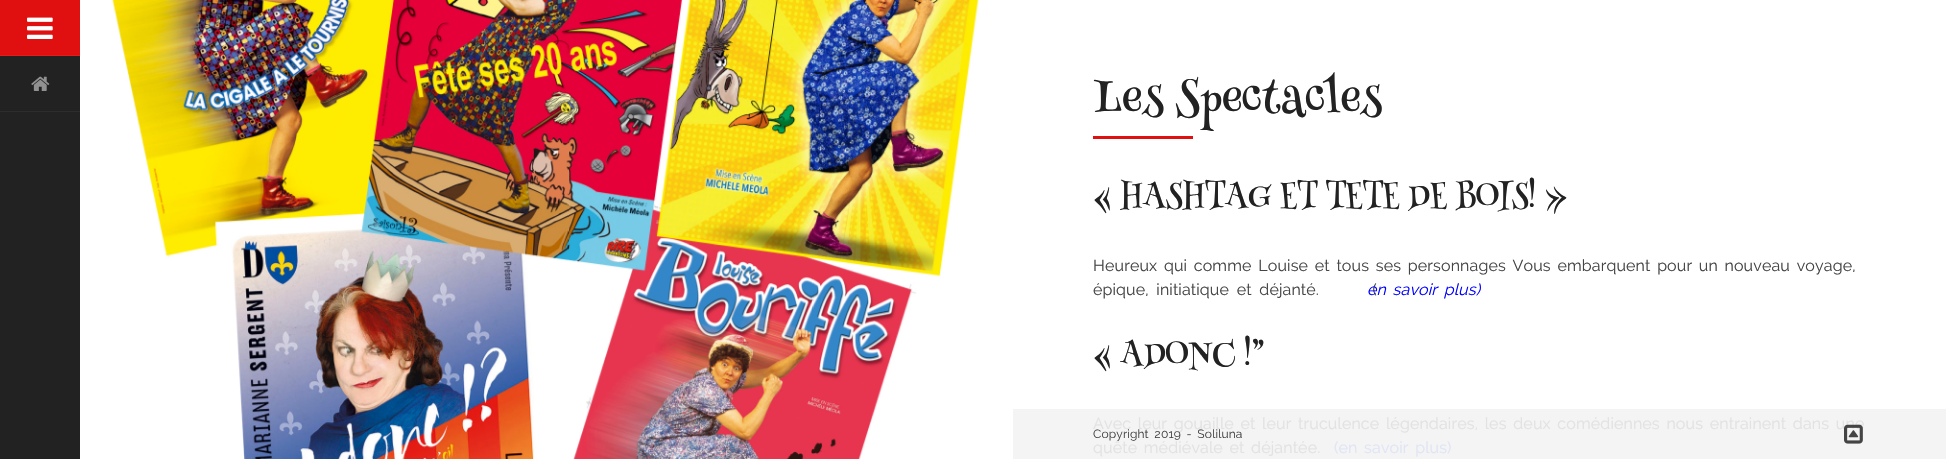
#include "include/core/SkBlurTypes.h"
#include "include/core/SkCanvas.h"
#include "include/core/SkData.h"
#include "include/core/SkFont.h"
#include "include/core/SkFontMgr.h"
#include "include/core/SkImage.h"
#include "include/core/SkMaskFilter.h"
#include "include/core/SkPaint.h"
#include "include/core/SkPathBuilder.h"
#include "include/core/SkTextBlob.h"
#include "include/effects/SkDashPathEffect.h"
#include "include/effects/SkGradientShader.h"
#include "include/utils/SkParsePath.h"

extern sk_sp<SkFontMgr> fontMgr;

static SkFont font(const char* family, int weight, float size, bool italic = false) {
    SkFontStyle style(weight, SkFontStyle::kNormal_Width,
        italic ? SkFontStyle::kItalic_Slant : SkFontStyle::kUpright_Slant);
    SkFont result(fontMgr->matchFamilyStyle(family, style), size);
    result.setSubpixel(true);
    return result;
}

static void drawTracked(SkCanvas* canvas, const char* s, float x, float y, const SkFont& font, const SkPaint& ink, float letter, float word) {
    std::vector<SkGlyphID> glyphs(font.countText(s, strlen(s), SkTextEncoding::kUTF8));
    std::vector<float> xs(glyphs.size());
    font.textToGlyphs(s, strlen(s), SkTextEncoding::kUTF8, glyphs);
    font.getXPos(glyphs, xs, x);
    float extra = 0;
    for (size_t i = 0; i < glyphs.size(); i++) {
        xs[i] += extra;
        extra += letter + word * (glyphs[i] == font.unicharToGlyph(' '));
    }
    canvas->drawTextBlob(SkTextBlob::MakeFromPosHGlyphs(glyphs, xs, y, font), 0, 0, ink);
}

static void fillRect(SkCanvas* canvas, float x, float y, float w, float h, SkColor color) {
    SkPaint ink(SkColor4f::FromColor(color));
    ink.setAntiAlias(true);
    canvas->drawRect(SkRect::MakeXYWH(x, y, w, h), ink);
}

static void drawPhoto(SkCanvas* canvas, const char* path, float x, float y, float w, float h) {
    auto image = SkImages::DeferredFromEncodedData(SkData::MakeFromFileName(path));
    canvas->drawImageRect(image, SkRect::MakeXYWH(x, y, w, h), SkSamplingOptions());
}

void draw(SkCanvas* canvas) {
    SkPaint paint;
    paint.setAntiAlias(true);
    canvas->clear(0xFFFFFFFF);
    fillRect(canvas, 1013, 409, 933, 50, 0xFFF4F4F4);
    fillRect(canvas, 0, 56, 80, 403, 0xFF222222);
    fillRect(canvas, 0, 0, 80, 55, 0xFFE11010);
    fillRect(canvas, 0, 55, 80, 1, 0xFFE31C1C);
    drawPhoto(canvas, "assets/img1.png", 27, 17, 26, 22);
    fillRect(canvas, 0, 111, 80, 1, 0xFF2D2D2D);
    drawPhoto(canvas, "assets/img2.png", 31, 76, 19, 15);
    drawPhoto(canvas, "assets/img3.png", 112, 0, 868, 459);
    SkFont font1 = font("Henny Penny", 400, 44);
    paint.setColor(0xFF222222);
    drawTracked(canvas, "Les Spectacles", 1093, 113, font1, paint, 0.5f, 0);
    fillRect(canvas, 1093, 136, 100, 3, 0xFFE11010);
    SkFont font2 = font("Henny Penny", 400, 30);
    drawTracked(canvas, "« HASHTAG ET TETE DE BOIS! »", 1093, 206, font2, paint, 0.3f, 0);
    SkFont font3 = font("Raleway", 400, 16);
    paint.setColor(0xFF444444);
    drawTracked(canvas, "Heureux qui comme Louise et tous ses personnages Vous embarquent pour un nouveau voyage,", 1093, 271, font3, paint, 0.15f, 2.4f);
    drawTracked(canvas, "épique, initiatique et déjanté.       (", 1093, 295, font3, paint, 0.15f, 3.4f);
    SkFont font4 = font("Raleway", 400, 16, true);
    paint.setColor(0xFF0000FF);
    drawTracked(canvas, "en savoir plus)", 1367, 295, font4, paint, 0.15f, 2.4f);
    paint.setColor(0xFF222222);
    drawTracked(canvas, "« ADONC !”", 1093, 364, font2, paint, 0.3f, 0);
    paint.setColor(0xFFE2E2E2);
    drawTracked(canvas, "Avec leur gouaille et leur truculence légendaires, les deux comédiennes nous entrainent dans une", 1093, 429, font3, paint, 0.15f, 2.4f);
    drawTracked(canvas, "quête médiévale et déjantée.", 1093, 453, font3, paint, 0.15f, 2.4f);
    paint.setColor(0xFFE0E5F4);
    drawTracked(canvas, "(en savoir plus)", 1334, 453, font3, paint, 0.15f, 2.4f);
    SkFont font5 = font("Raleway", 400, 12);
    paint.setColor(0xFF444444);
    drawTracked(canvas, "Copyright 2019 - Soliluna", 1093, 438, font5, paint, 0.15f, 2.4f);
    drawPhoto(canvas, "assets/img4.png", 1844, 424, 19, 20);
}
